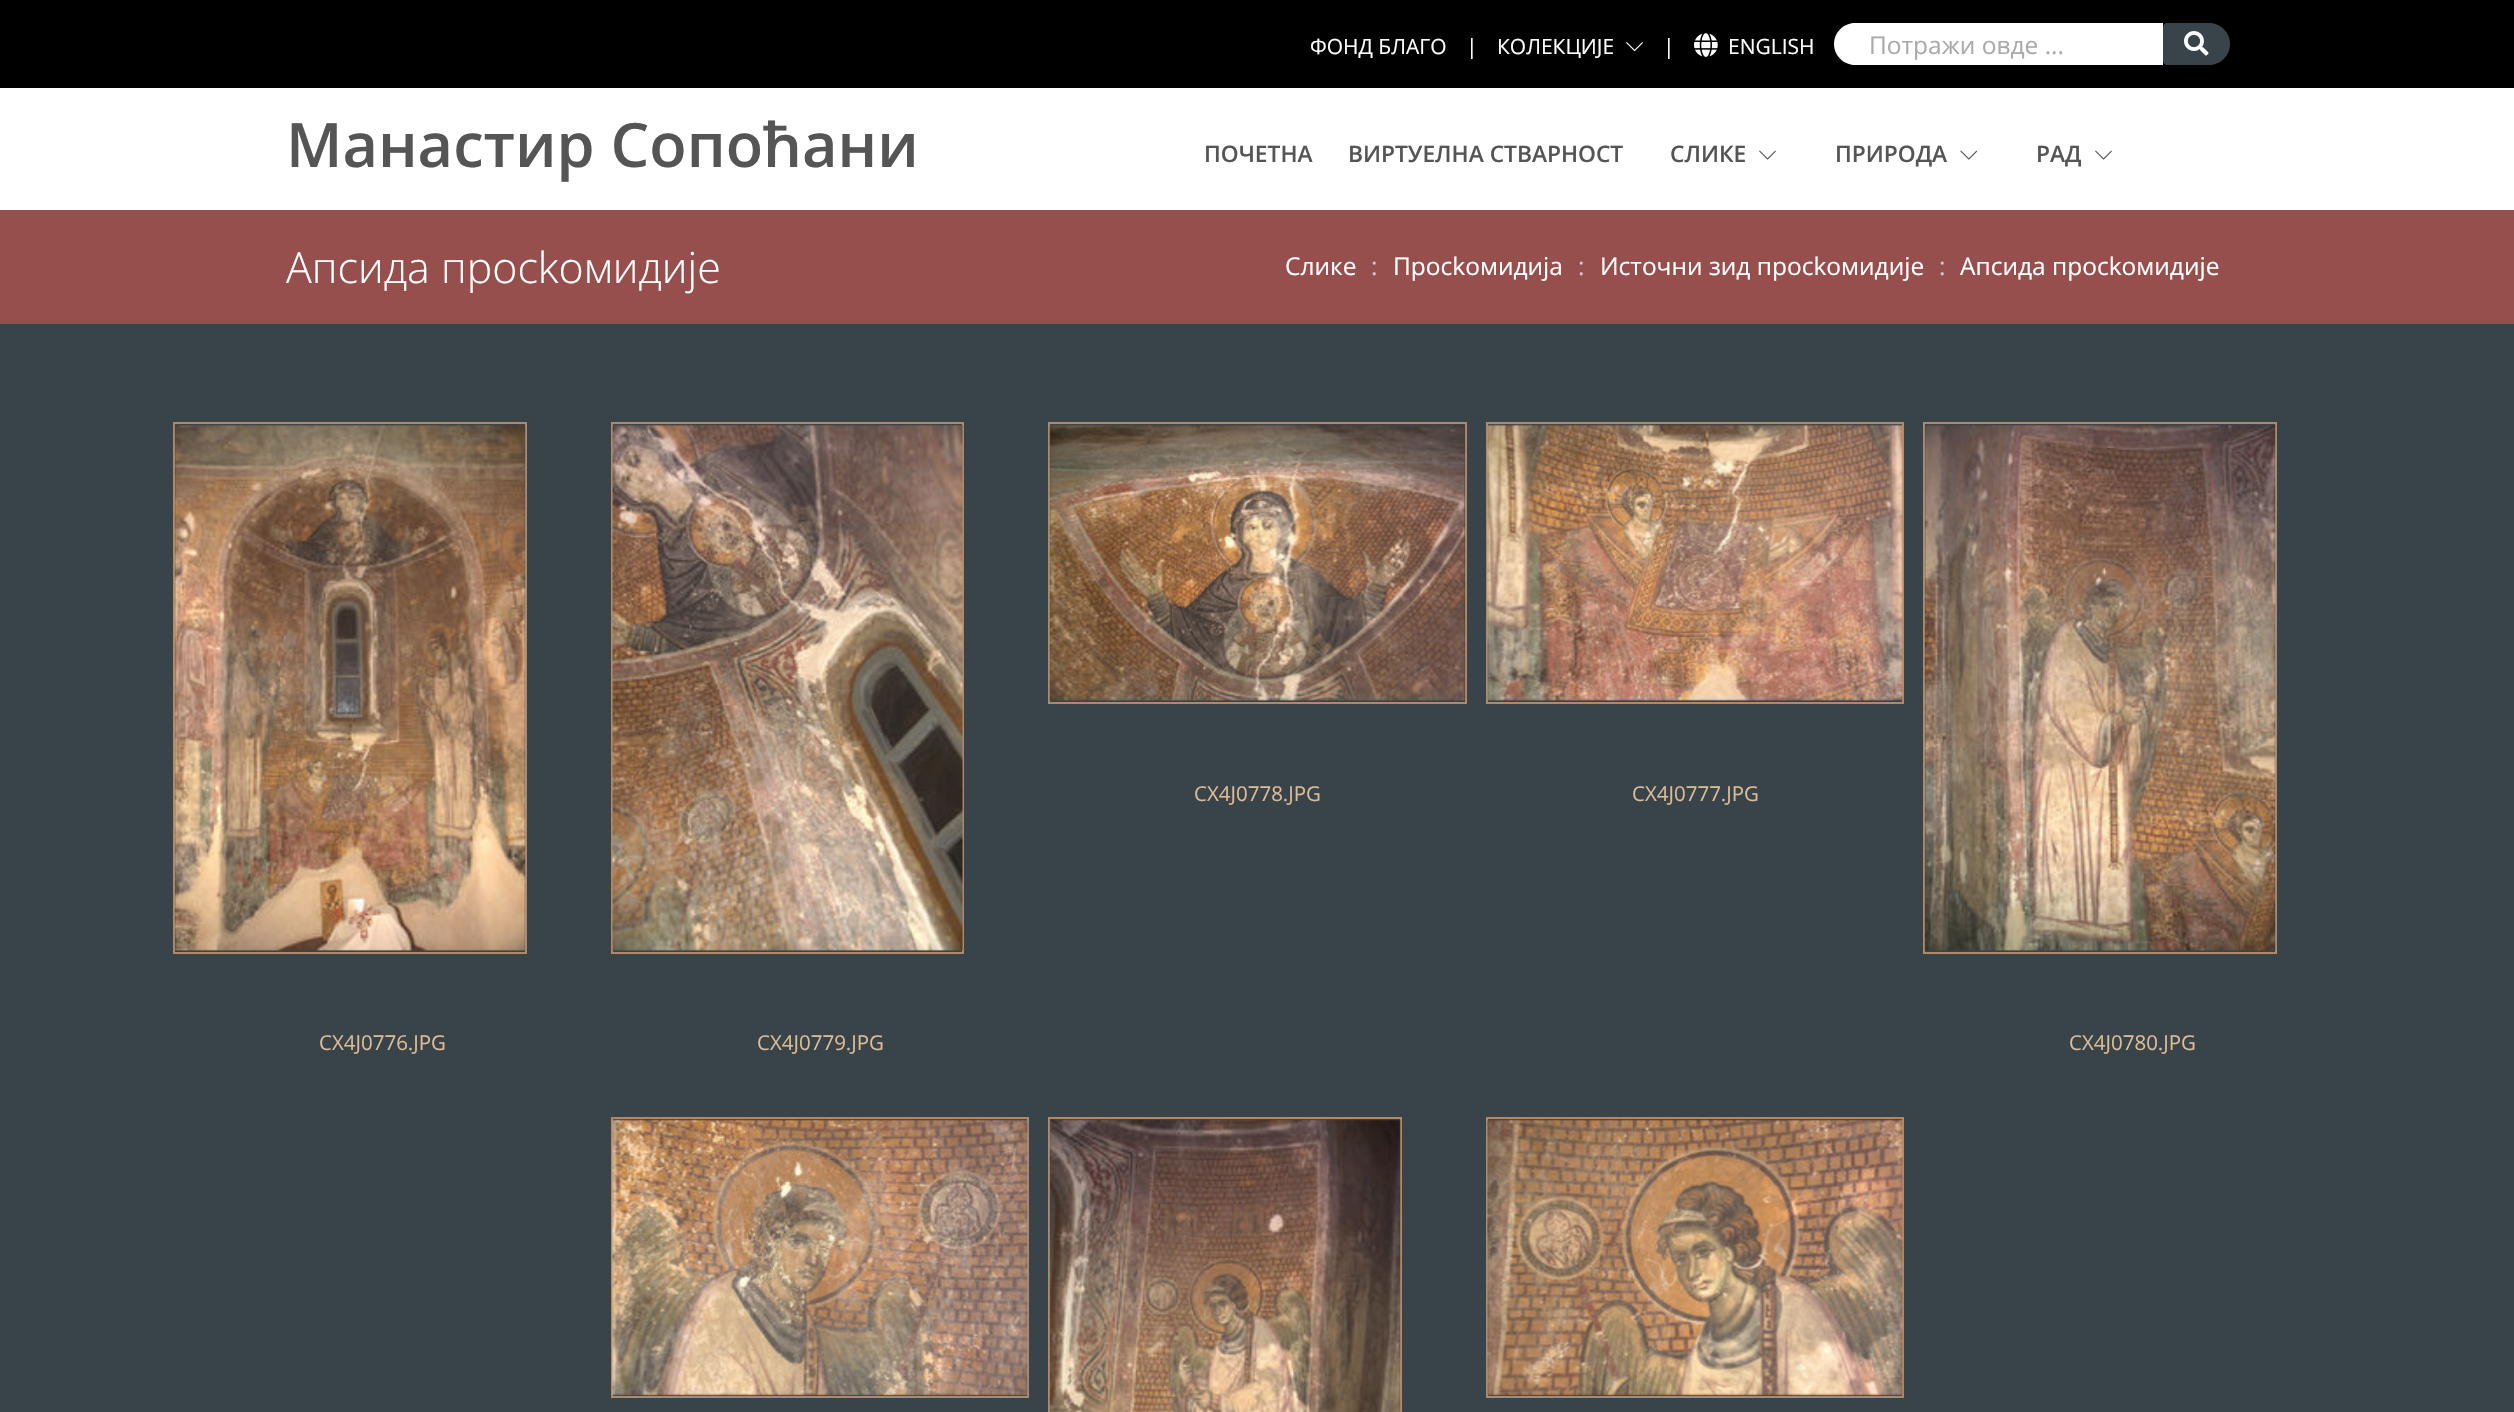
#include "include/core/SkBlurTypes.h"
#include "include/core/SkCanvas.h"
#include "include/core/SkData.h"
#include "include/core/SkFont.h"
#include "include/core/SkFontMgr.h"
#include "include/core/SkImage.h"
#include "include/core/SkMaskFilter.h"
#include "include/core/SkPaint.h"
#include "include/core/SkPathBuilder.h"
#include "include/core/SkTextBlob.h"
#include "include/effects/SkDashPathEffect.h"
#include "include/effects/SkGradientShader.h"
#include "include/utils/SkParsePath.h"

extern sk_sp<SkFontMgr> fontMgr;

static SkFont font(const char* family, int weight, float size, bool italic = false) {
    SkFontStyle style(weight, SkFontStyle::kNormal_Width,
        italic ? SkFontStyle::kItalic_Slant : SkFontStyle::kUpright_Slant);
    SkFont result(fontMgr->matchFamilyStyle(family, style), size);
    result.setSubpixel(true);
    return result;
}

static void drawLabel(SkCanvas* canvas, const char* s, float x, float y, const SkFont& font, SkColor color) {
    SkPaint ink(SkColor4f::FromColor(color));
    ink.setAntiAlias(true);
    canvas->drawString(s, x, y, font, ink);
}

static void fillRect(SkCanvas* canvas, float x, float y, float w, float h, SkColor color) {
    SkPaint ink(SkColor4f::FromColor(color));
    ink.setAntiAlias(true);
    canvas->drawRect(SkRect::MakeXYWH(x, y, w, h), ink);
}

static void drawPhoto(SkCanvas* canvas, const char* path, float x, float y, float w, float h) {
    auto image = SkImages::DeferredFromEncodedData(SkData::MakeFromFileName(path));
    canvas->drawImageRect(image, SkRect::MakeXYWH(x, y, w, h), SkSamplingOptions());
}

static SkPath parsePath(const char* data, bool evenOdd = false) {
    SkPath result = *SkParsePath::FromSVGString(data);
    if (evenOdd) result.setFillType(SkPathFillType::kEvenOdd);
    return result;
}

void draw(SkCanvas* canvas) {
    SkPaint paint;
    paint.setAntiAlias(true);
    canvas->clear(0xFFFFFFFF);
    fillRect(canvas, 0, 0, 2514, 88, 0xFF000000);
    SkFont font1 = font("Open Sans", 400, 21);
    drawLabel(canvas, "ФОНД БЛАГО", 1310, 54, font1, 0xFFFFFFFF);
    drawLabel(canvas, "|", 1466, 54, font1, 0xFFFFFFFF);
    drawLabel(canvas, "КОЛЕКЦИЈЕ", 1497, 54, font1, 0xFFFFFFFF);
    drawPhoto(canvas, "assets/img1.png", 1626, 42, 17, 10);
    drawLabel(canvas, "|", 1663, 54, font1, 0xFFFFFFFF);
    drawPhoto(canvas, "assets/img2.png", 1694, 33, 24, 24);
    drawLabel(canvas, "ENGLISH", 1728, 54, font1, 0xFFFFFFFF);
    paint.setColor(0xFFFFFFFF);
    canvas->drawPath(parsePath("M1855 23H2163V65H1855C1843.5 65 1834 55.5 1834 44C1834 32.5 1843.5 23 1855 23Z"), paint);
    SkFont font2 = font("Open Sans", 400, 24.5f);
    drawLabel(canvas, "Потражи овде ...", 1869, 54, font2, 0xFFAAAAAA);
    paint.setColor(0xFF39444A);
    canvas->drawPath(parsePath("M2167 23H2209C2220.5 23 2230 32.5 2230 44C2230 55.5 2220.5 65 2209 65H2167C2165 65 2163 63 2163 61V27C2163 25 2165 23 2167 23Z"), paint);
    drawPhoto(canvas, "assets/img3.png", 2184, 31, 25, 25);
    SkFont font3 = font("Open Sans", 600, 61.25f);
    drawLabel(canvas, "Манастир Сопоћани", 286, 167, font3, 0xFF555555);
    SkFont font4 = font("Open Sans", 600, 22.75f);
    drawLabel(canvas, "ПОЧЕТНА", 1204, 162, font4, 0xFF555555);
    drawLabel(canvas, "ВИРТУЕЛНА СТВАРНОСТ", 1348, 162, font4, 0xFF555555);
    drawLabel(canvas, "СЛИКЕ", 1670, 162, font4, 0xFF555555);
    drawPhoto(canvas, "assets/img4.png", 1759, 150, 17, 10);
    drawLabel(canvas, "ПРИРОДА", 1835, 162, font4, 0xFF555555);
    drawPhoto(canvas, "assets/img5.png", 1960, 150, 18, 10);
    drawLabel(canvas, "РАД", 2036, 162, font4, 0xFF555555);
    drawPhoto(canvas, "assets/img4.png", 2095, 150, 17, 10);
    fillRect(canvas, 0, 210, 2514, 114, 0xFF964F4C);
    SkFont font5 = font("Open Sans", 300, 42.9f);
    drawLabel(canvas, "Aпсидa прoсkoмидиje", 286, 283, font5, 0xFFFFFFFF);
    drawLabel(canvas, "Слике", 1285, 275, font2, 0xFFFFFFFF);
    drawLabel(canvas, ":", 1371, 275, font2, 0xFFCCCCCC);
    drawLabel(canvas, "Прoсkoмидиja", 1393, 275, font2, 0xFFFFFFFF);
    drawLabel(canvas, ":", 1578, 275, font2, 0xFFCCCCCC);
    drawLabel(canvas, "Истoчни зид прoсkoмидиje", 1600, 275, font2, 0xFFFFFFFF);
    drawLabel(canvas, ":", 1939, 275, font2, 0xFFCCCCCC);
    drawLabel(canvas, "Aпсидa прoсkoмидиje", 1960, 275, font2, 0xFFFFFFFF);
    fillRect(canvas, 0, 324, 2514, 1088, 0xFF39444A);
    paint.setStroke(true);
    paint.setStrokeWidth(2);
    paint.setColor(0xFFB38867);
    canvas->drawRect(SkRect::MakeXYWH(1049, 423, 417, 280), paint);
    drawPhoto(canvas, "assets/img6.png", 1049, 424, 417, 277);
    SkFont font6 = font("Open Sans", 400, 20.5f);
    drawLabel(canvas, "CX4J0778.JPG", 1194, 801, font6, 0xFFDDBC95);
    canvas->drawRect(SkRect::MakeXYWH(1487, 423, 416, 280), paint);
    drawPhoto(canvas, "assets/img7.png", 1487, 424, 417, 277);
    drawLabel(canvas, "CX4J0777.JPG", 1632, 801, font6, 0xFFDDBC95);
    canvas->drawRect(SkRect::MakeXYWH(174, 423, 352, 530), paint);
    drawPhoto(canvas, "assets/img8.png", 174, 424, 352, 527);
    drawLabel(canvas, "CX4J0776.JPG", 319, 1050, font6, 0xFFDDBC95);
    canvas->drawRect(SkRect::MakeXYWH(612, 423, 351, 530), paint);
    drawPhoto(canvas, "assets/img9.png", 612, 424, 351, 527);
    drawLabel(canvas, "CX4J0779.JPG", 757, 1050, font6, 0xFFDDBC95);
    canvas->drawRect(SkRect::MakeXYWH(1924, 423, 352, 530), paint);
    drawPhoto(canvas, "assets/img10.png", 1924, 424, 352, 527);
    drawLabel(canvas, "CX4J0780.JPG", 2069, 1050, font6, 0xFFDDBC95);
    canvas->drawRect(SkRect::MakeXYWH(612, 1118, 416, 279), paint);
    drawPhoto(canvas, "assets/img11.png", 612, 1119, 417, 277);
    canvas->drawRect(SkRect::MakeXYWH(1049, 1118, 352, 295), paint);
    drawPhoto(canvas, "assets/img12.png", 1049, 1119, 352, 293);
    canvas->drawRect(SkRect::MakeXYWH(1487, 1118, 416, 279), paint);
    drawPhoto(canvas, "assets/img13.png", 1487, 1119, 417, 277);
}
